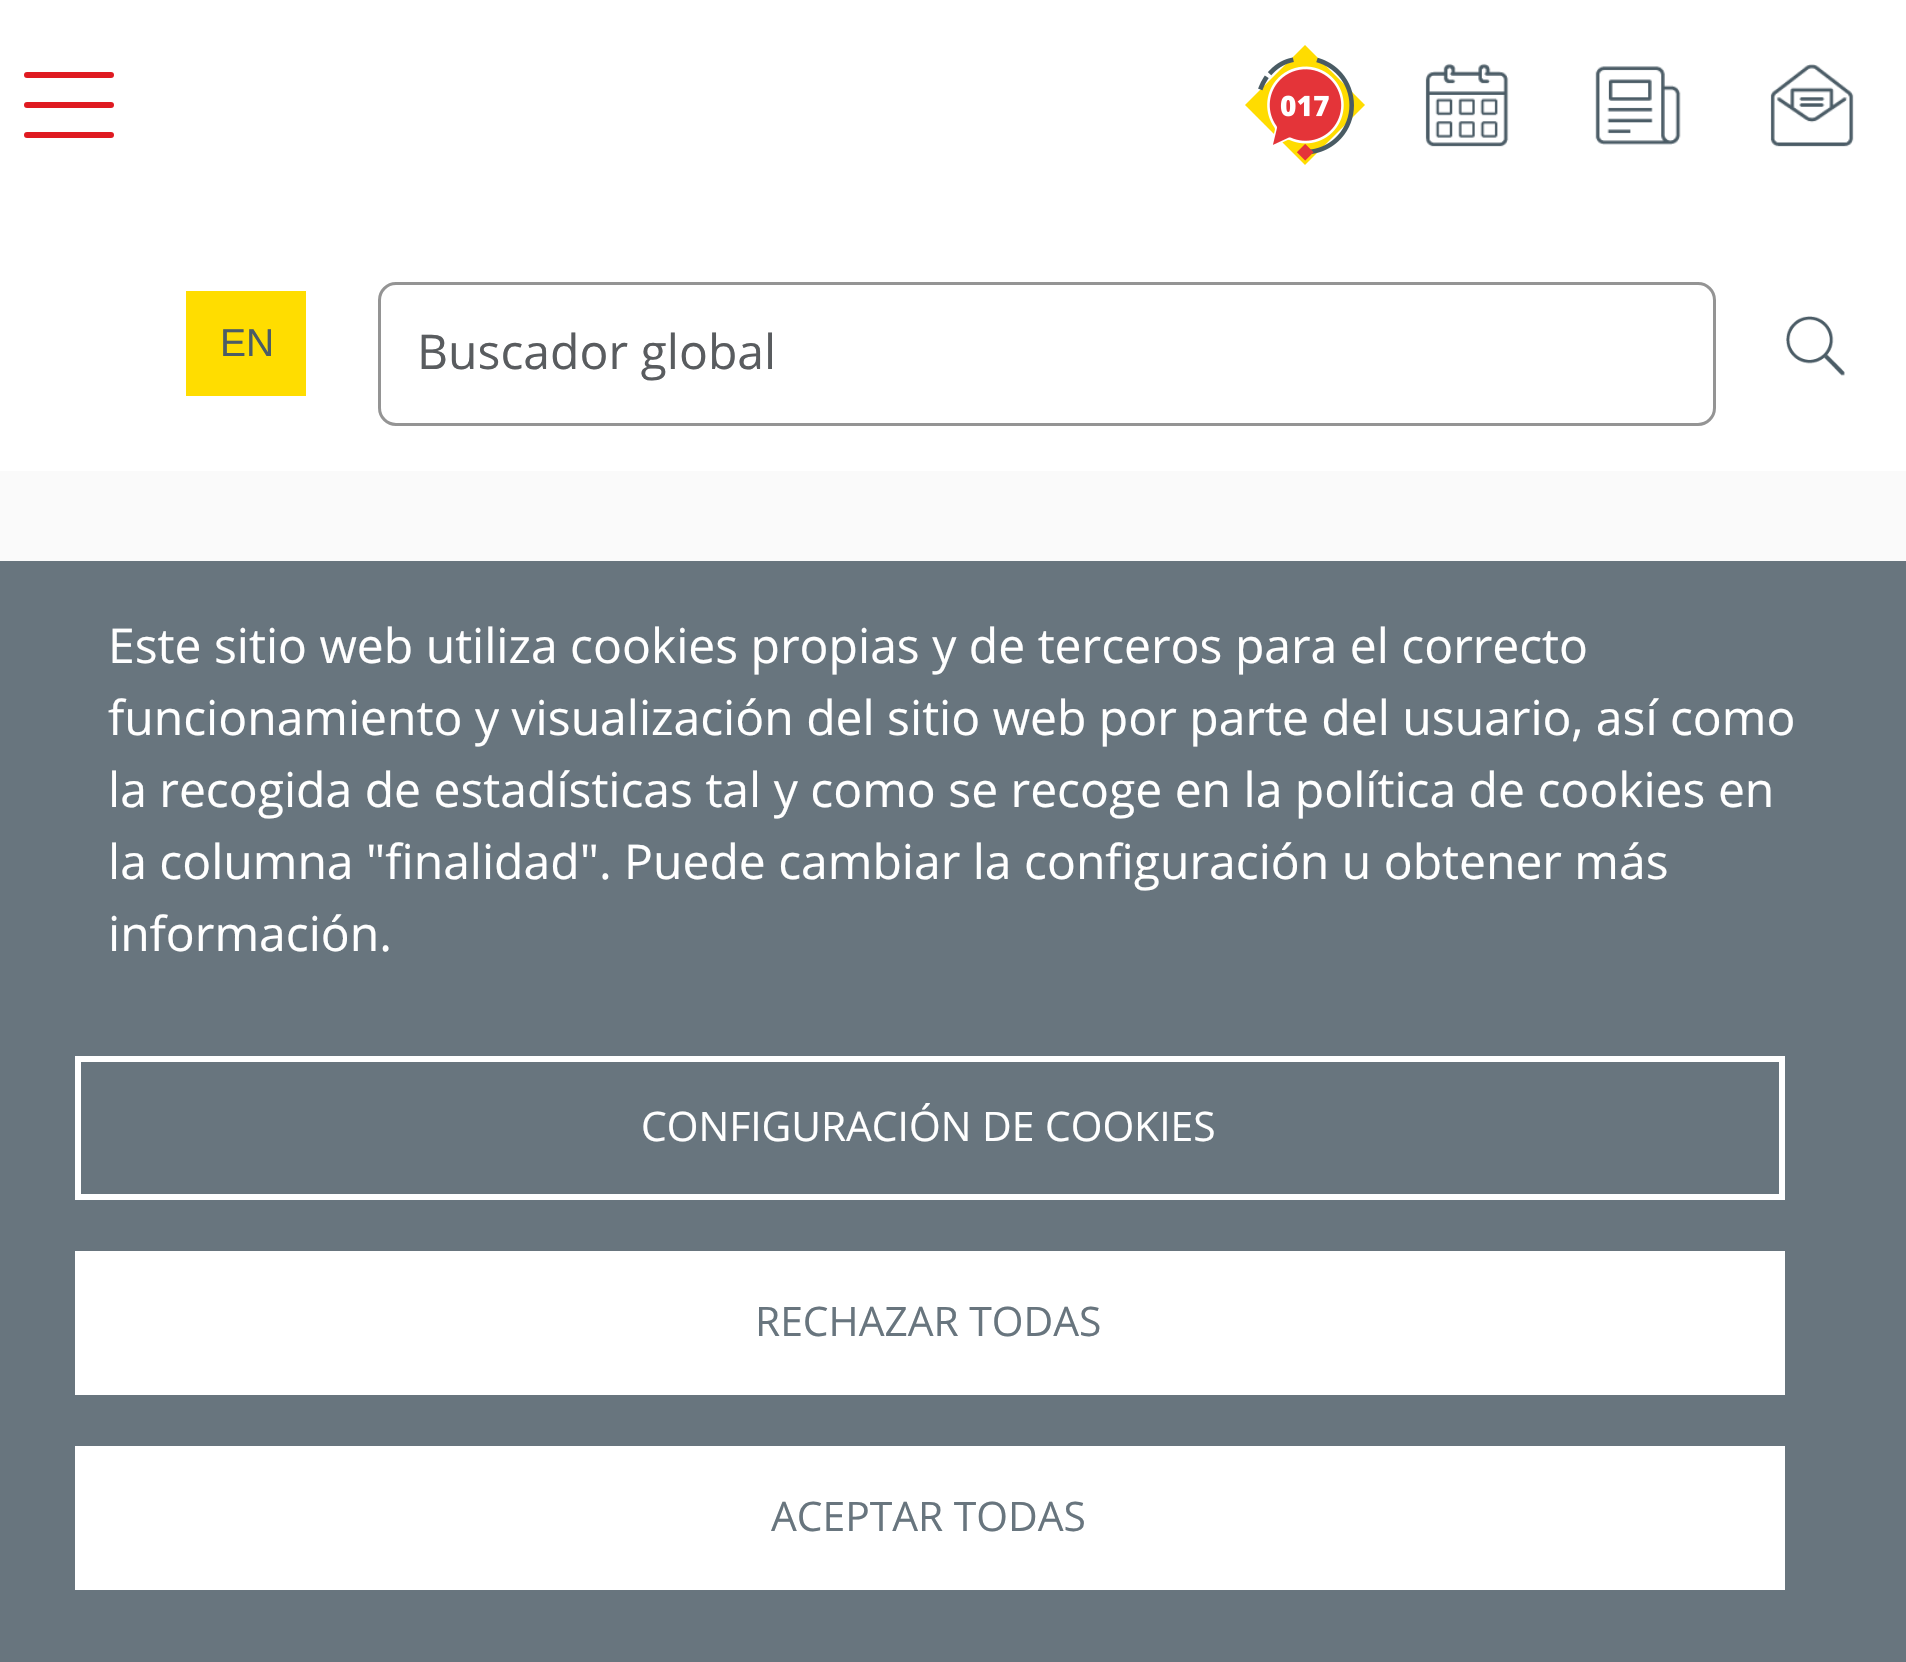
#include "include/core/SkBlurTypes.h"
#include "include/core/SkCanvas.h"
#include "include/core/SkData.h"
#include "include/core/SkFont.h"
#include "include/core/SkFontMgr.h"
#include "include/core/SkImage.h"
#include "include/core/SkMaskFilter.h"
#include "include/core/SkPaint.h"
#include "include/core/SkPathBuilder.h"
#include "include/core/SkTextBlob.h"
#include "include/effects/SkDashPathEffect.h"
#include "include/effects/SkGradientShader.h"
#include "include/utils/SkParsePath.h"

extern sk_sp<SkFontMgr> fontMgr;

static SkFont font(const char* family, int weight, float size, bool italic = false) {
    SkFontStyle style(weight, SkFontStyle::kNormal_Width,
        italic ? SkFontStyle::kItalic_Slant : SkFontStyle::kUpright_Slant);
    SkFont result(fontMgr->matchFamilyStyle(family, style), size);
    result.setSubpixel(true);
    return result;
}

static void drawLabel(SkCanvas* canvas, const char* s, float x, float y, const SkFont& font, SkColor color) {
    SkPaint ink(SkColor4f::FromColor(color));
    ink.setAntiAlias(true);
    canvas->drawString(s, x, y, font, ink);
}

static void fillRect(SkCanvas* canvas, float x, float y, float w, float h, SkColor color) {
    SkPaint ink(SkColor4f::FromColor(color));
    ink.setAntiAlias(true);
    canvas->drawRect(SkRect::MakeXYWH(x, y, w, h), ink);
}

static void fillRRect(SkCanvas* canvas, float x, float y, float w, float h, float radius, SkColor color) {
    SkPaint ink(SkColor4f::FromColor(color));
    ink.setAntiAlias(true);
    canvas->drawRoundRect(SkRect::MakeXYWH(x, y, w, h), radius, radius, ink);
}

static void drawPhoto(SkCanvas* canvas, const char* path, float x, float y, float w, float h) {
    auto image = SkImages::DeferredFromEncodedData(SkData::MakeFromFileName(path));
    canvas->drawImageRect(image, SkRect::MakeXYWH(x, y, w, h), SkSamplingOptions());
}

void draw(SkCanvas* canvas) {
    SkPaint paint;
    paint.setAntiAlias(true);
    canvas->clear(0xFFFAFAFA);
    fillRect(canvas, 0, 0, 1906, 471, 0xFFFFFFFF);
    fillRRect(canvas, 24, 72, 90, 6, 3, 0xFFDF1A21);
    fillRRect(canvas, 24, 102, 90, 6, 3, 0xFFDF1A21);
    fillRRect(canvas, 24, 132, 90, 6, 3, 0xFFDF1A21);
    drawPhoto(canvas, "assets/img1.png", 1245, 45, 120, 120);
    drawPhoto(canvas, "assets/img2.png", 1425, 63, 84, 84);
    drawPhoto(canvas, "assets/img3.png", 1595, 66, 86, 79);
    drawPhoto(canvas, "assets/img4.png", 1770, 64, 84, 83);
    fillRect(canvas, 186, 291, 120, 105, 0xFFFFDD00);
    SkFont font1 = font("Liberation Sans", 400, 39);
    drawLabel(canvas, "EN", 220, 356, font1, 0xFF4B5C66);
    paint.setStroke(true);
    paint.setStrokeWidth(3);
    paint.setColor(0xFF949494);
    canvas->drawRoundRect(SkRect::MakeXYWH(379.5f, 283.5f, 1335, 141), 16.5f, 16.5f, paint);
    SkFont font2 = font("Open Sans", 400, 48);
    drawLabel(canvas, "Buscador global", 417, 369, font2, 0xFF595C5F);
    drawPhoto(canvas, "assets/img5.png", 1786, 316, 59, 60);
    fillRect(canvas, 0, 561, 1906, 1101, 0xFF68757E);
    drawLabel(canvas, "Este sitio web utiliza cookies propias y de terceros para el correcto", 108, 663, font2, 0xFFFFFFFF);
    drawLabel(canvas, "funcionamiento y visualización del sitio web por parte del usuario, así como", 108, 735, font2, 0xFFFFFFFF);
    drawLabel(canvas, "la recogida de estadísticas tal y como se recoge en la política de cookies en", 108, 807, font2, 0xFFFFFFFF);
    drawLabel(canvas, "la columna \"finalidad\". Puede cambiar la configuración u obtener más", 108, 879, font2, 0xFFFFFFFF);
    drawLabel(canvas, "información.", 108, 951, font2, 0xFFFFFFFF);
    paint.setStrokeWidth(6);
    paint.setColor(0xFFFFFFFF);
    canvas->drawRect(SkRect::MakeXYWH(78, 1059, 1704, 138), paint);
    SkFont font3 = font("Open Sans", 400, 40.75f);
    drawLabel(canvas, "CONFIGURACIÓN DE COOKIES", 641, 1141, font3, 0xFFFFFFFF);
    fillRect(canvas, 75, 1251, 1710, 144, 0xFFFFFFFF);
    drawLabel(canvas, "RECHAZAR TODAS", 755, 1336, font3, 0xFF68757E);
    fillRect(canvas, 75, 1446, 1710, 144, 0xFFFFFFFF);
    drawLabel(canvas, "ACEPTAR TODAS", 771, 1531, font3, 0xFF68757E);
}
